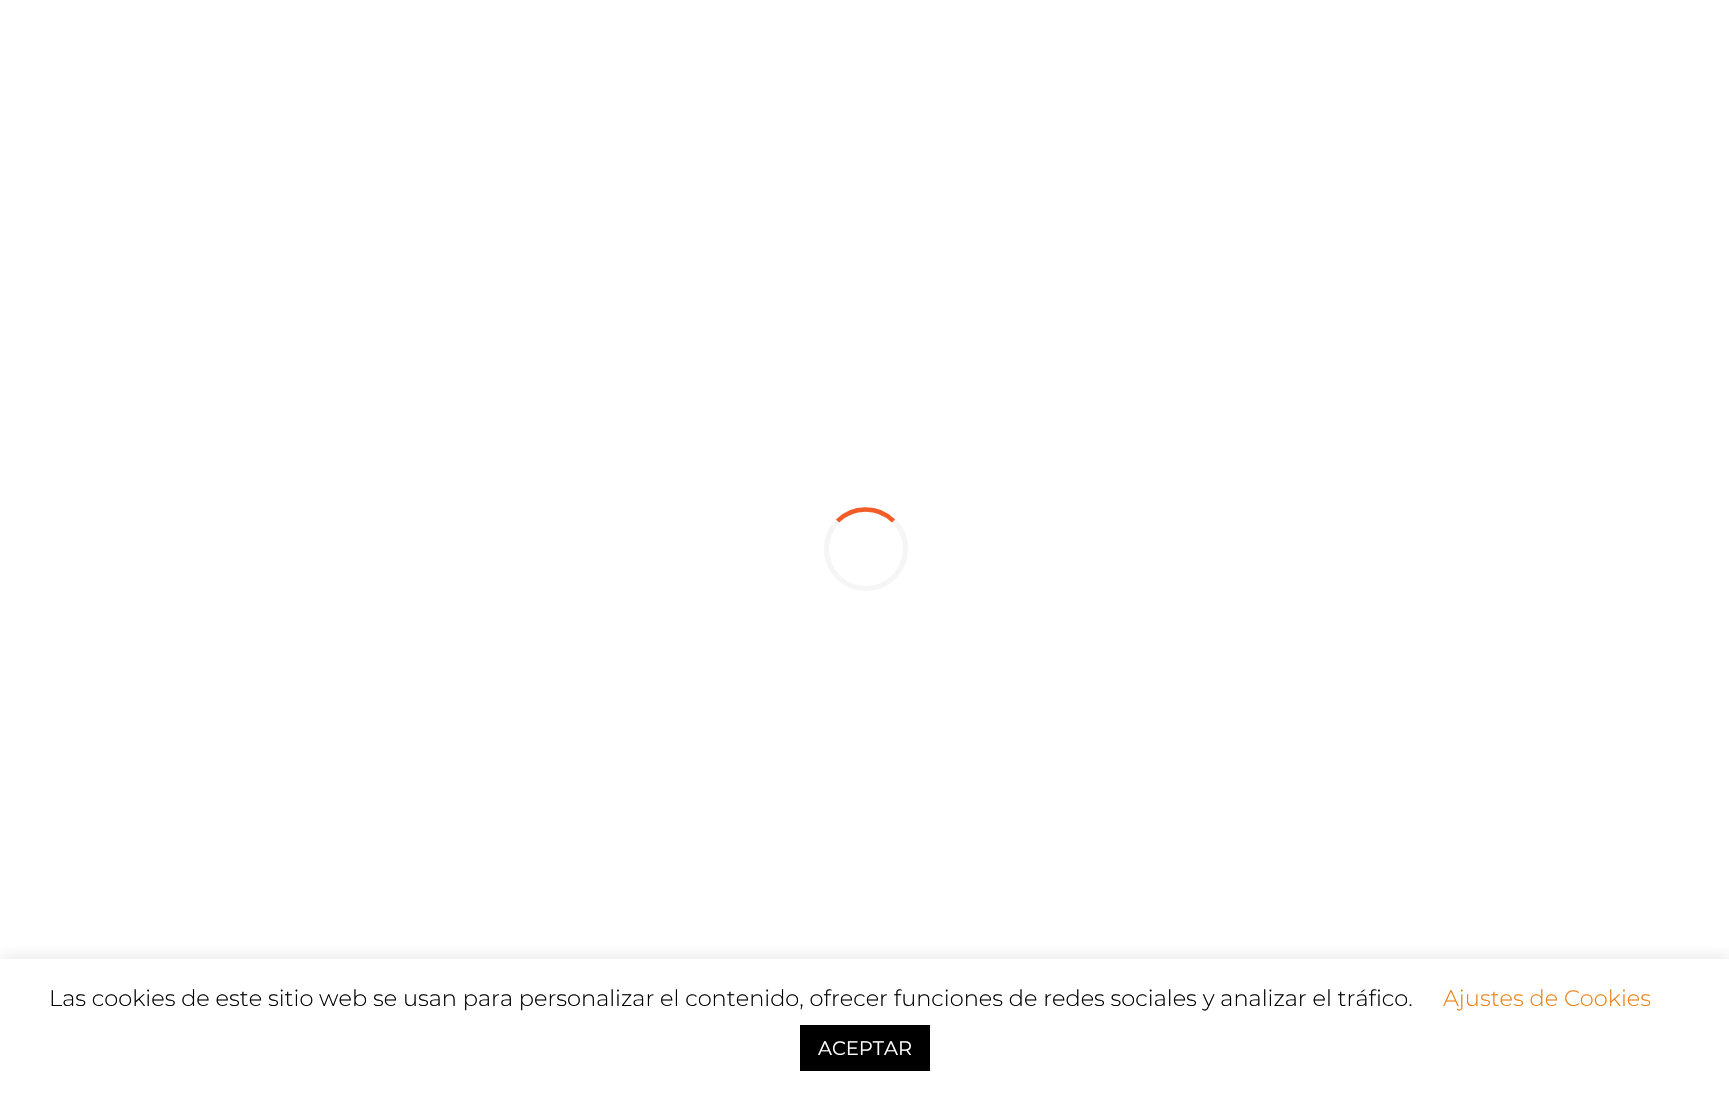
#include "include/core/SkBlurTypes.h"
#include "include/core/SkCanvas.h"
#include "include/core/SkData.h"
#include "include/core/SkFont.h"
#include "include/core/SkFontMgr.h"
#include "include/core/SkImage.h"
#include "include/core/SkMaskFilter.h"
#include "include/core/SkPaint.h"
#include "include/core/SkPathBuilder.h"
#include "include/core/SkTextBlob.h"
#include "include/effects/SkDashPathEffect.h"
#include "include/effects/SkGradientShader.h"
#include "include/utils/SkParsePath.h"

extern sk_sp<SkFontMgr> fontMgr;

static SkFont font(const char* family, int weight, float size, bool italic = false) {
    SkFontStyle style(weight, SkFontStyle::kNormal_Width,
        italic ? SkFontStyle::kItalic_Slant : SkFontStyle::kUpright_Slant);
    SkFont result(fontMgr->matchFamilyStyle(family, style), size);
    result.setSubpixel(true);
    return result;
}

static void drawLabel(SkCanvas* canvas, const char* s, float x, float y, const SkFont& font, SkColor color) {
    SkPaint ink(SkColor4f::FromColor(color));
    ink.setAntiAlias(true);
    canvas->drawString(s, x, y, font, ink);
}

static void fillRect(SkCanvas* canvas, float x, float y, float w, float h, SkColor color) {
    SkPaint ink(SkColor4f::FromColor(color));
    ink.setAntiAlias(true);
    canvas->drawRect(SkRect::MakeXYWH(x, y, w, h), ink);
}

static SkPath parsePath(const char* data, bool evenOdd = false) {
    SkPath result = *SkParsePath::FromSVGString(data);
    if (evenOdd) result.setFillType(SkPathFillType::kEvenOdd);
    return result;
}

void draw(SkCanvas* canvas) {
    SkPaint paint;
    paint.setAntiAlias(true);
    canvas->clear(0xFFFFFFFF);
    paint.setStroke(true);
    paint.setStrokeWidth(5);
    paint.setColor(0xFFF5F5F5);
    canvas->drawCircle(866, 549, 39.5f, paint);
    paint.setStrokeWidth(4.5f);
    paint.setColor(0xFFF35C27);
    canvas->drawPath(parsePath("M837.5 521C852.5 505.5 878.5 505.5 893.5 521"), paint);
    canvas->save();
    canvas->clipRect(SkRect::MakeXYWH(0, 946, 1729, 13));
    paint.setStroke(false);
    paint.setColor(0x4DACABAB);
    paint.setMaskFilter(SkMaskFilter::MakeBlur(kNormal_SkBlurStyle, 7.5f));
    canvas->drawRect(SkRect::MakeXYWH(0, 957, 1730, 138), paint);
    paint.setMaskFilter(nullptr);
    canvas->restore();
    SkFont font1 = font("Montserrat", 300, 22.5f);
    drawLabel(canvas, "Las cookies de este sitio web se usan para personalizar el contenido, ofrecer funciones de redes sociales y analizar el tráfico.", 49, 1006, font1, 0xFF000000);
    drawLabel(canvas, "Ajustes de Cookies", 1443, 1006, font1, 0xFFEB8216);
    fillRect(canvas, 800, 1025, 130, 46, 0xFF000000);
    SkFont font2 = font("Montserrat", 400, 19.5f);
    drawLabel(canvas, "ACEPTAR", 818, 1055, font2, 0xFFFFFFFF);
}
